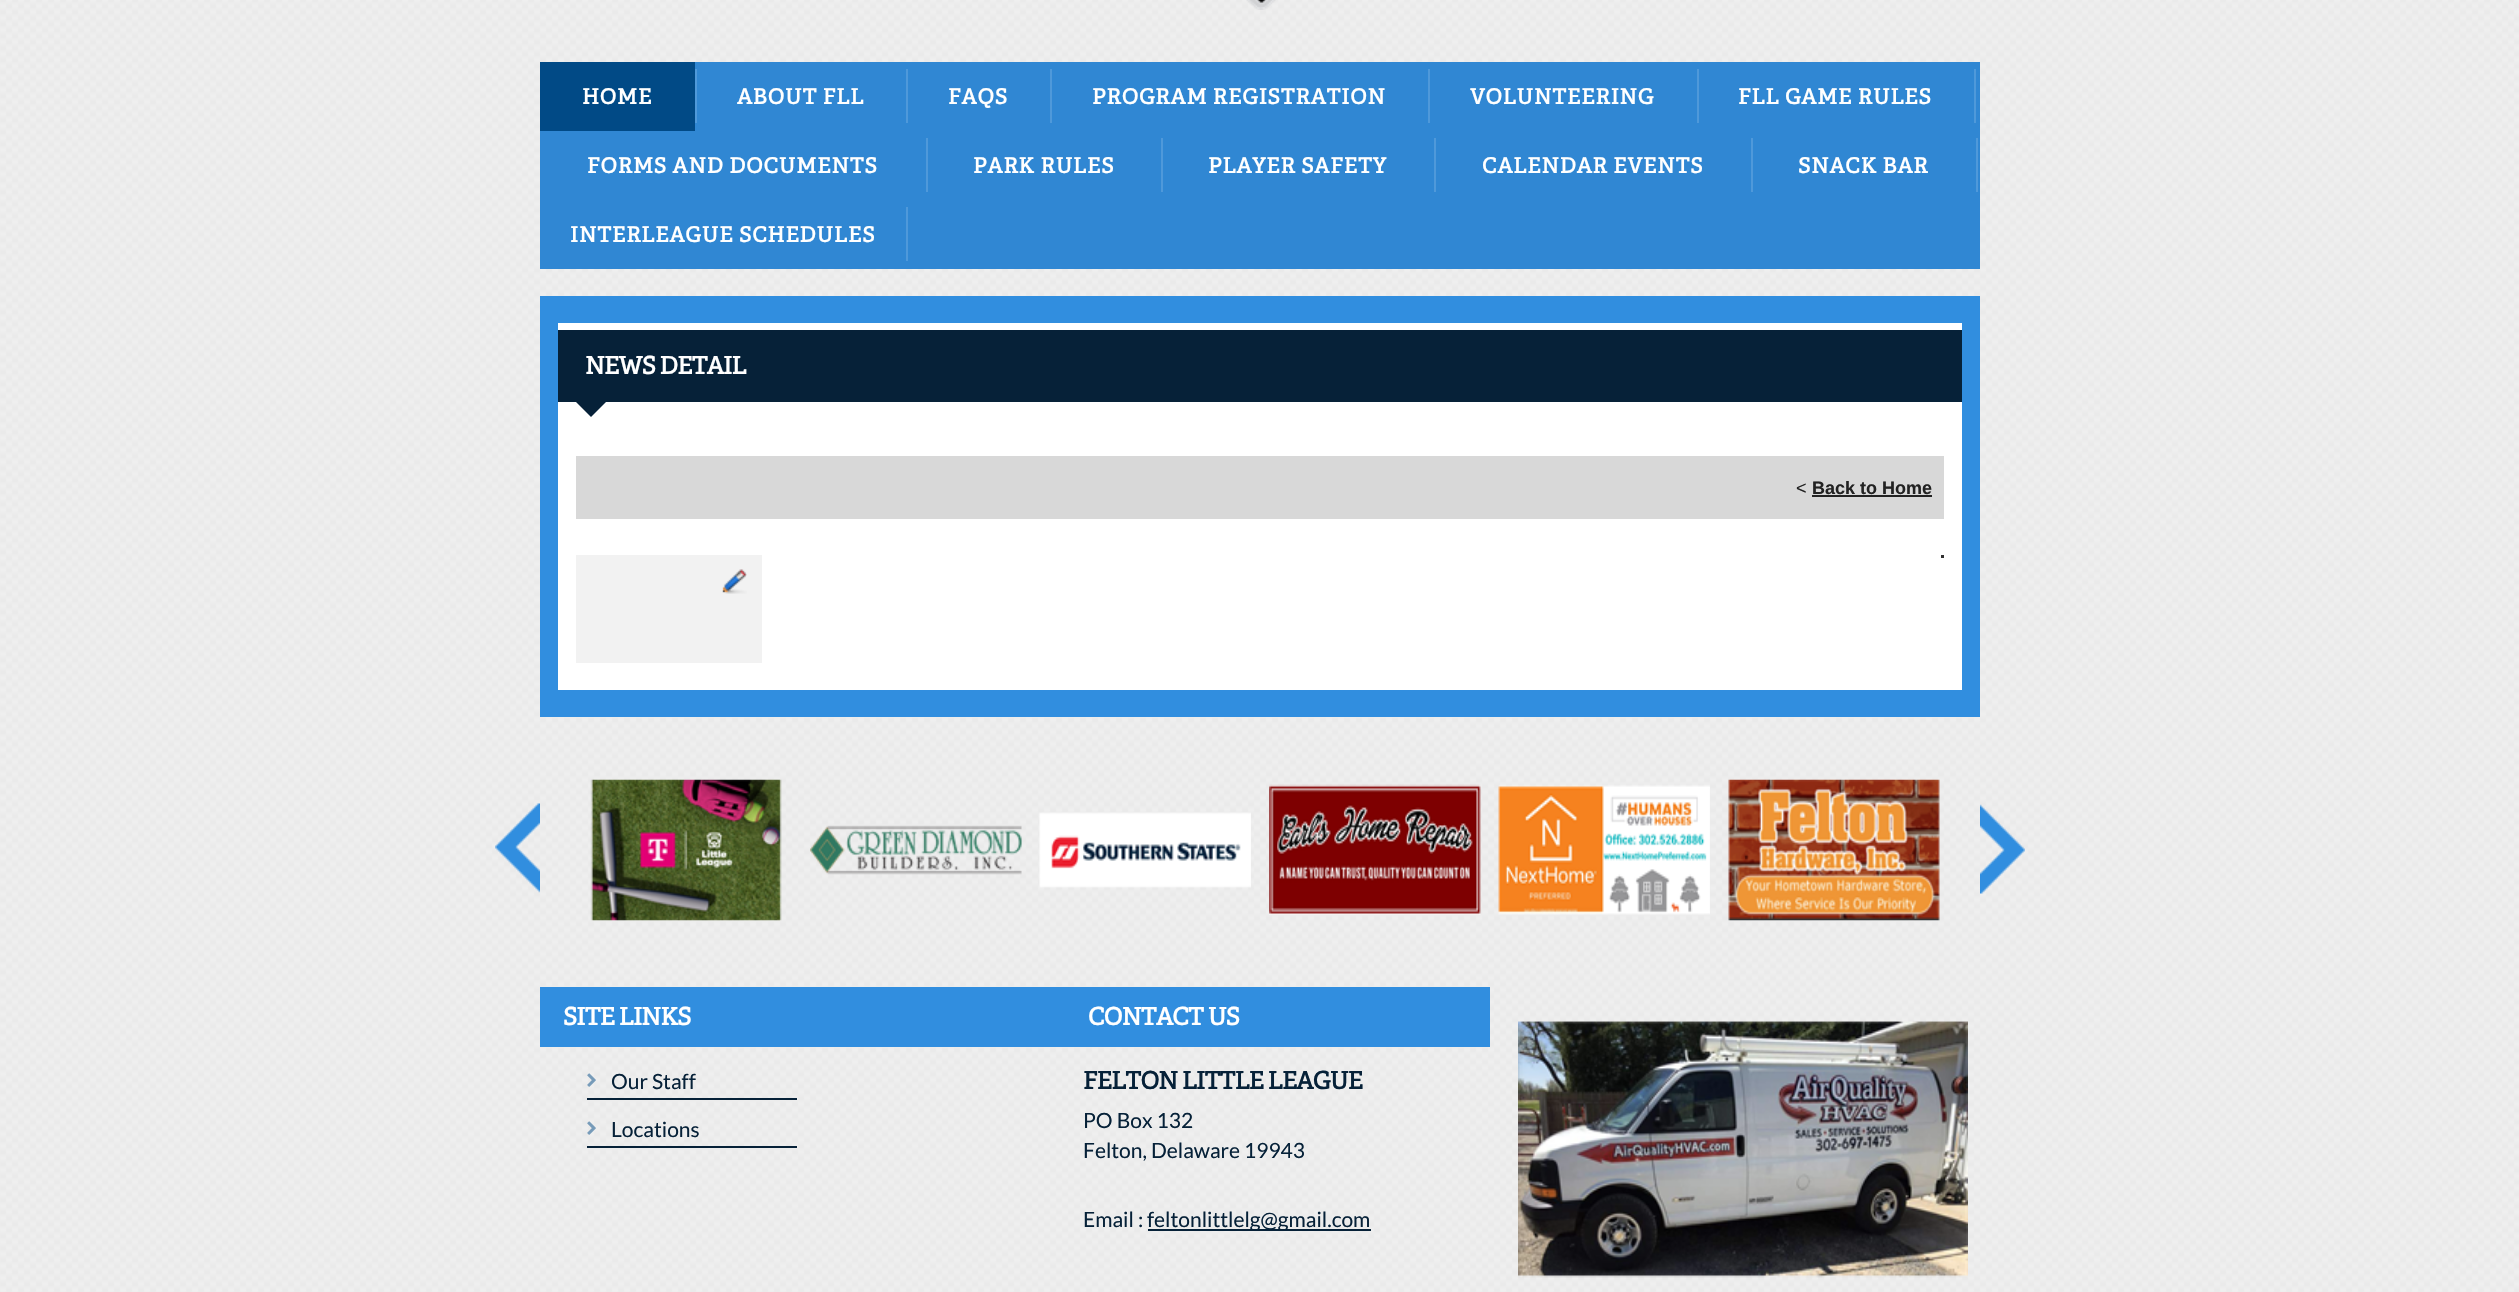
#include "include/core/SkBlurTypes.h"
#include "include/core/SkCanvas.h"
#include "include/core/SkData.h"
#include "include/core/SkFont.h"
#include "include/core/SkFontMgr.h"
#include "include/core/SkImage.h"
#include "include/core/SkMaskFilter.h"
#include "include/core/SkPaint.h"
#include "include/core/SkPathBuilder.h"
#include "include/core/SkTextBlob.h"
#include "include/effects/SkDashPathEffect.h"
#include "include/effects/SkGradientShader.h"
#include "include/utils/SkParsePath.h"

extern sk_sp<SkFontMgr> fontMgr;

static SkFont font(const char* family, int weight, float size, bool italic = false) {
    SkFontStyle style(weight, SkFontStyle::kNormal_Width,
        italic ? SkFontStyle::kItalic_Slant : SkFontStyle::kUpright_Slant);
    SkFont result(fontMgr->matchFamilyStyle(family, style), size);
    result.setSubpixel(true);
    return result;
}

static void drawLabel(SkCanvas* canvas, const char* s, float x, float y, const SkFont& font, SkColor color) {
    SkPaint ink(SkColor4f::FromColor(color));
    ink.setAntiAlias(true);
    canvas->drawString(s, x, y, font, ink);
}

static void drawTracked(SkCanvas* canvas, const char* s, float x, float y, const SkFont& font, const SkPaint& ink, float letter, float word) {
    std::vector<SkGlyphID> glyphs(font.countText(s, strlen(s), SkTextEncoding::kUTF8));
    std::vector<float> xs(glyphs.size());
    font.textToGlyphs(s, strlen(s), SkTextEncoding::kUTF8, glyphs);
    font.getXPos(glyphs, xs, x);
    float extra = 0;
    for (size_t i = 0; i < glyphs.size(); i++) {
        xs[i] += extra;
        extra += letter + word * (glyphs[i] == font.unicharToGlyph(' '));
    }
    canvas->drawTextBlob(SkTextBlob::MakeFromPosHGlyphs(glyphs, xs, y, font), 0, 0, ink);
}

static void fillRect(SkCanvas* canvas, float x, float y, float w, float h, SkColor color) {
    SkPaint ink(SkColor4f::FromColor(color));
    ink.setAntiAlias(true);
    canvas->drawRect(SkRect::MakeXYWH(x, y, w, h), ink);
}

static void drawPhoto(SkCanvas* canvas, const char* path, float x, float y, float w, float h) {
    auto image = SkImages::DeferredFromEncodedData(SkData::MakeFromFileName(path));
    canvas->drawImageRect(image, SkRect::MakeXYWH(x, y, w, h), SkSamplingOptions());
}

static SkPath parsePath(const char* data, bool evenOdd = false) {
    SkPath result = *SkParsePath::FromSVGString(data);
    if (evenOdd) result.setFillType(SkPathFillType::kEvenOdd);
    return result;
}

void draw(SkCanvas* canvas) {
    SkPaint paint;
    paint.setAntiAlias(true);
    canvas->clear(0xFFFFFFFF);
    drawPhoto(canvas, "assets/img1.png", 0, 0, 2519, 1292);
    drawPhoto(canvas, "assets/img2.png", 1246, 0, 30, 10);
    fillRect(canvas, 540, 62, 1440, 207, 0xFF3087D3);
    fillRect(canvas, 540, 62, 155, 69, 0xFF014A86);
    SkFont font1 = font("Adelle", 700, 21);
    paint.setColor(0xFFFFFFFF);
    drawTracked(canvas, "HOME", 582, 104, font1, paint, 0.9f, 0);
    fillRect(canvas, 695, 69, 2, 54, 0xFF4F99DA);
    drawTracked(canvas, "ABOUT FLL", 737, 104, font1, paint, 0.9f, 0);
    fillRect(canvas, 906, 69, 2, 54, 0xFF4F99DA);
    drawTracked(canvas, "FAQS", 948, 104, font1, paint, 0.9f, 0);
    fillRect(canvas, 1050, 69, 2, 54, 0xFF4F99DA);
    drawTracked(canvas, "PROGRAM REGISTRATION", 1092, 104, font1, paint, 0.9f, 0);
    fillRect(canvas, 1428, 69, 2, 54, 0xFF4F99DA);
    drawTracked(canvas, "VOLUNTEERING", 1470, 104, font1, paint, 0.9f, 0);
    fillRect(canvas, 1697, 69, 2, 54, 0xFF4F99DA);
    drawTracked(canvas, "FLL GAME RULES", 1738, 104, font1, paint, 0.9f, 0);
    fillRect(canvas, 1974, 69, 2, 54, 0xFF4F99DA);
    drawTracked(canvas, "FORMS AND DOCUMENTS", 587, 173, font1, paint, 0.9f, 0);
    fillRect(canvas, 926, 138, 2, 54, 0xFF4F99DA);
    drawTracked(canvas, "PARK RULES", 973, 173, font1, paint, 0.9f, 0);
    fillRect(canvas, 1161, 138, 2, 54, 0xFF4F99DA);
    drawTracked(canvas, "PLAYER SAFETY", 1208, 173, font1, paint, 0.9f, 0);
    fillRect(canvas, 1434, 138, 2, 54, 0xFF4F99DA);
    drawTracked(canvas, "CALENDAR EVENTS", 1482, 173, font1, paint, 0.9f, 0);
    fillRect(canvas, 1751, 138, 2, 54, 0xFF4F99DA);
    drawTracked(canvas, "SNACK BAR", 1798, 173, font1, paint, 0.9f, 0);
    fillRect(canvas, 1976, 138, 2, 54, 0xFF4F99DA);
    drawTracked(canvas, "INTERLEAGUE SCHEDULES", 570, 242, font1, paint, 0.9f, 0);
    fillRect(canvas, 906, 207, 2, 54, 0xFF4F99DA);
    fillRect(canvas, 540, 296, 1440, 421, 0xFF318EDF);
    fillRect(canvas, 558, 330, 1404, 72, 0xFF062138);
    fillRect(canvas, 558, 323, 1404, 7, 0xFFFFFFFF);
    SkFont font2 = font("Adelle", 700, 24);
    drawTracked(canvas, "NEWS DETAIL", 585, 374, font2, paint, -0.75f, 0);
    fillRect(canvas, 558, 402, 1404, 288, 0xFFFFFFFF);
    paint.setColor(0xFF062138);
    canvas->drawPath(parsePath("M576 402H606L591 417Z"), paint);
    fillRect(canvas, 576, 456, 1368, 63, 0xFFD8D8D8);
    SkFont font3 = font("Liberation Sans", 400, 18);
    drawLabel(canvas, "<", 1796, 494, font3, 0xFF222222);
    SkFont font4 = font("Liberation Sans", 700, 18);
    drawLabel(canvas, "Back to Home", 1812, 494, font4, 0xFF222222);
    fillRect(canvas, 1812, 495, 120, 2, 0xFF222222);
    fillRect(canvas, 576, 555, 186, 108, 0xFFF2F2F2);
    drawPhoto(canvas, "assets/img3.png", 722, 569, 25, 25);
    fillRect(canvas, 1941, 555, 3, 3, 0xFF303030);
    drawPhoto(canvas, "assets/img4.png", 495, 803, 45, 90);
    drawPhoto(canvas, "assets/img5.png", 590, 779, 192, 142);
    drawPhoto(canvas, "assets/img6.png", 810, 825, 212, 50);
    drawPhoto(canvas, "assets/img7.png", 1039, 812, 212, 76);
    drawPhoto(canvas, "assets/img8.png", 1269, 784, 212, 131);
    drawPhoto(canvas, "assets/img9.png", 1498, 785, 212, 130);
    drawPhoto(canvas, "assets/img10.png", 1728, 779, 212, 142);
    drawPhoto(canvas, "assets/img11.png", 1980, 804, 45, 90);
    fillRect(canvas, 540, 987, 950, 60, 0xFF318EDF);
    paint.setColor(0xFFFFFFFF);
    drawTracked(canvas, "SITE LINKS", 563, 1025, font2, paint, -0.75f, 0);
    fillRect(canvas, 587, 1098, 210, 2, 0xFF062138);
    drawPhoto(canvas, "assets/img12.png", 587, 1073, 9, 14);
    SkFont font5 = font("Lato", 400, 21);
    drawLabel(canvas, "Our Staff", 611, 1089, font5, 0xFF062138);
    fillRect(canvas, 587, 1146, 210, 2, 0xFF062138);
    drawPhoto(canvas, "assets/img12.png", 587, 1121, 9, 14);
    drawLabel(canvas, "Locations", 611, 1137, font5, 0xFF062138);
    drawTracked(canvas, "CONTACT US", 1088, 1025, font2, paint, -0.75f, 0);
    paint.setColor(0xFF062138);
    drawTracked(canvas, "FELTON LITTLE LEAGUE", 1083, 1089, font2, paint, -0.75f, 0);
    drawLabel(canvas, "PO Box 132", 1083, 1128, font5, 0xFF062138);
    drawLabel(canvas, "Felton, Delaware 19943", 1083, 1158, font5, 0xFF062138);
    drawLabel(canvas, "Email :", 1083, 1227, font5, 0xFF062138);
    fillRect(canvas, 1148, 1229, 223, 2, 0xFF062138);
    drawLabel(canvas, "feltonlittlelg@gmail.com", 1147, 1227, font5, 0xFF062138);
    drawPhoto(canvas, "assets/img13.png", 1518, 1021, 450, 257);
}
